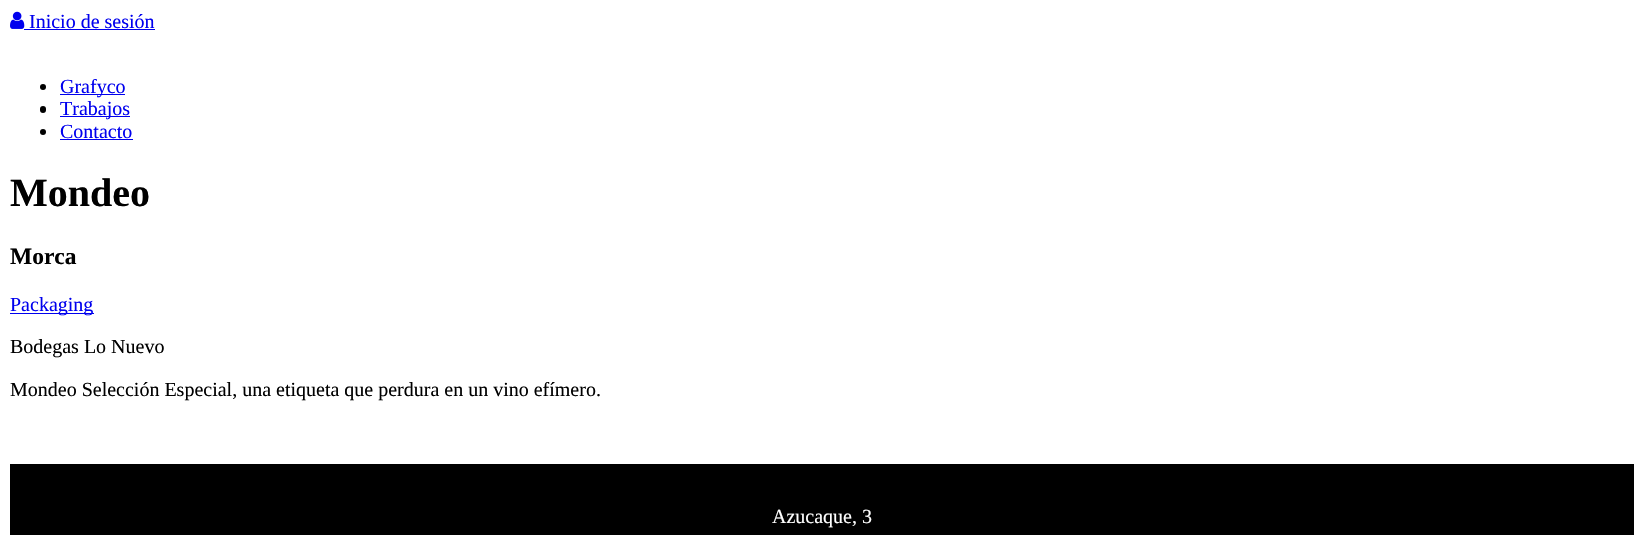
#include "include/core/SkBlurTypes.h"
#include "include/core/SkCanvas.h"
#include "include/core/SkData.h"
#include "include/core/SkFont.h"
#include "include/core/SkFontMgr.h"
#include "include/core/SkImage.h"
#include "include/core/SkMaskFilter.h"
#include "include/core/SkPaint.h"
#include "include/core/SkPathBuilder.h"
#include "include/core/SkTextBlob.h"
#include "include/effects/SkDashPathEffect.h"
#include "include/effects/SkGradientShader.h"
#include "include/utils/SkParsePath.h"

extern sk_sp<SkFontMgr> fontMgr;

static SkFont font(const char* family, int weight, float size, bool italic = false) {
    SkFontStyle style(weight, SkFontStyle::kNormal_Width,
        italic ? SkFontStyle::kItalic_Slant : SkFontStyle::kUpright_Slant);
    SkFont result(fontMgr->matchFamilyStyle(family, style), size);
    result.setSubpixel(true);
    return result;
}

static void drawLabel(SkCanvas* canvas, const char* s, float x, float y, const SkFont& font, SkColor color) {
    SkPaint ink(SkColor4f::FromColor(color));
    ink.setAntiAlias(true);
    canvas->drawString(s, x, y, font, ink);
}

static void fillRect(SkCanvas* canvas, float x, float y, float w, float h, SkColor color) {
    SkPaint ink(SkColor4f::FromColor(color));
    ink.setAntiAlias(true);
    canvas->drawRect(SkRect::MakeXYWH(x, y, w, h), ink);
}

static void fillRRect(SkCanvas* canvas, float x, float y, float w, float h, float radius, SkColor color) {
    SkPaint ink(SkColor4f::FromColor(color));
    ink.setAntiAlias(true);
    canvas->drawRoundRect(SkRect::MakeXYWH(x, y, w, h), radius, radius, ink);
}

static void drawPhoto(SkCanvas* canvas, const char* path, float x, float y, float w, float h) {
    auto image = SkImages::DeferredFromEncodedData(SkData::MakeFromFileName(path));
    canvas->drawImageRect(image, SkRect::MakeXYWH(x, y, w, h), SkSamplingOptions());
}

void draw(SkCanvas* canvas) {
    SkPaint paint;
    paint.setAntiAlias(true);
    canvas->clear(0xFFFFFFFF);
    drawPhoto(canvas, "assets/img1.png", 10, 11, 15, 18);
    SkFont font1 = font("Liberation Serif", 400, 20);
    drawLabel(canvas, "Inicio de sesión", 29, 28, font1, 0xFF0000EE);
    fillRect(canvas, 24, 29, 131, 1, 0xFF0000EE);
    paint.setColor(0xFF000000);
    canvas->drawCircle(43, 87, 3, paint);
    fillRect(canvas, 60, 94, 65, 1, 0xFF0000EE);
    drawLabel(canvas, "Grafyco", 60, 93, font1, 0xFF0000EE);
    fillRRect(canvas, 40, 106, 6, 7, 3, 0xFF000000);
    fillRect(canvas, 60, 116, 70, 1, 0xFF0000EE);
    drawLabel(canvas, "Trabajos", 60, 115, font1, 0xFF0000EE);
    canvas->drawCircle(43, 132, 3, paint);
    drawLabel(canvas, "Contacto", 60, 138, font1, 0xFF0000EE);
    fillRect(canvas, 60, 139, 73, 1, 0xFF0000EE);
    SkFont font2 = font("Liberation Serif", 700, 40);
    drawLabel(canvas, "Mondeo", 10, 206, font2, 0xFF000000);
    SkFont font3 = font("Liberation Serif", 700, 23.5f);
    drawLabel(canvas, "Morca", 10, 264, font3, 0xFF000000);
    fillRect(canvas, 10, 313, 84, 1, 0xFF0000EE);
    drawLabel(canvas, "Packaging", 10, 311, font1, 0xFF0000EE);
    drawLabel(canvas, "Bodegas Lo Nuevo", 10, 353, font1, 0xFF000000);
    drawLabel(canvas, "Mondeo Selección Especial, una etiqueta que perdura en un vino efímero.", 10, 396, font1, 0xFF000000);
    fillRect(canvas, 10, 464, 1624, 71, 0xFF000000);
    drawLabel(canvas, "Azucaque, 3", 772, 523, font1, 0xFFFFFFFF);
}
